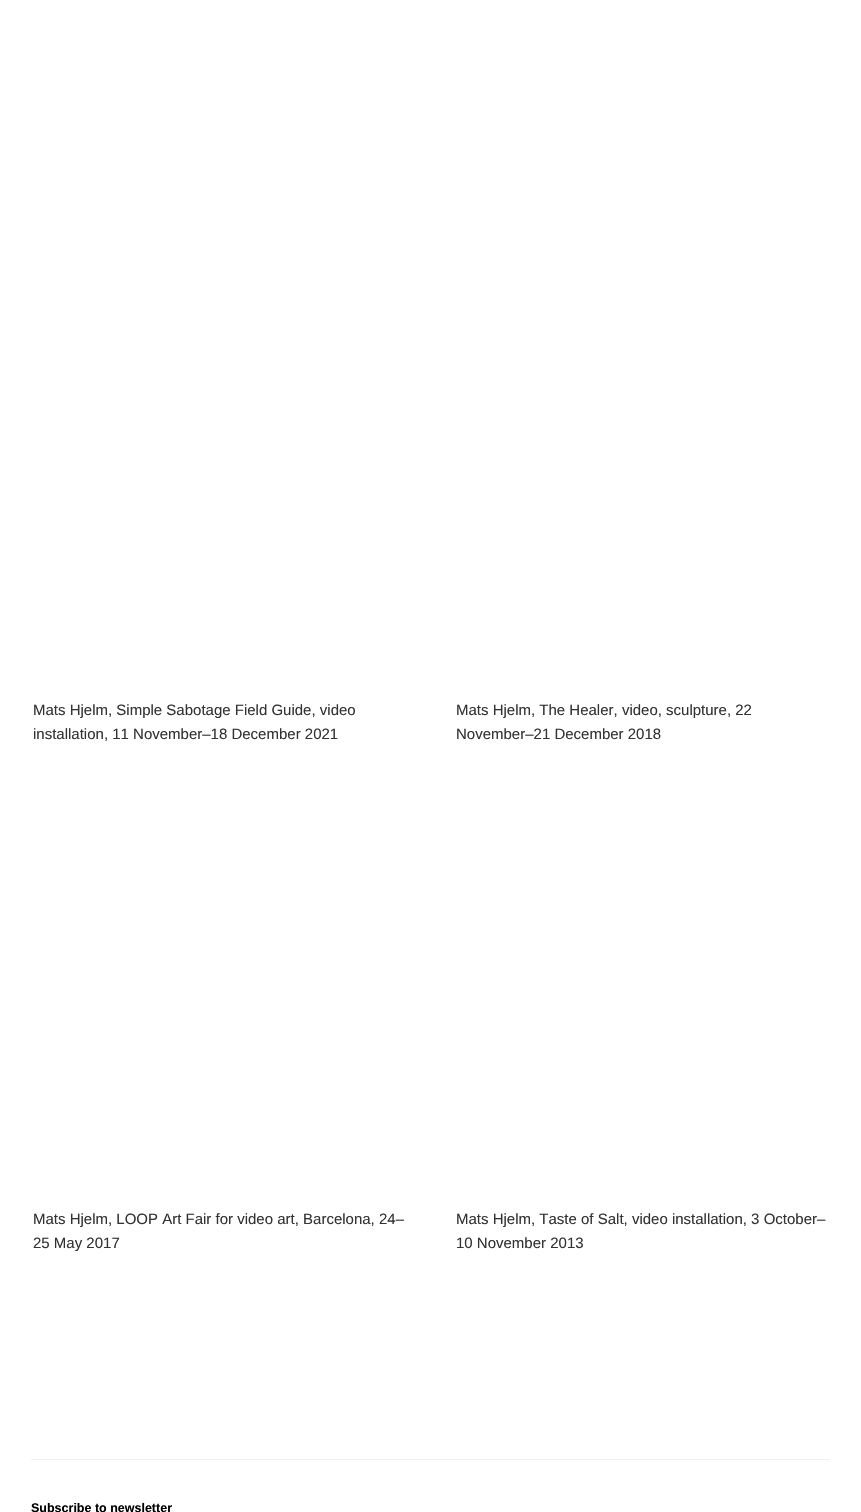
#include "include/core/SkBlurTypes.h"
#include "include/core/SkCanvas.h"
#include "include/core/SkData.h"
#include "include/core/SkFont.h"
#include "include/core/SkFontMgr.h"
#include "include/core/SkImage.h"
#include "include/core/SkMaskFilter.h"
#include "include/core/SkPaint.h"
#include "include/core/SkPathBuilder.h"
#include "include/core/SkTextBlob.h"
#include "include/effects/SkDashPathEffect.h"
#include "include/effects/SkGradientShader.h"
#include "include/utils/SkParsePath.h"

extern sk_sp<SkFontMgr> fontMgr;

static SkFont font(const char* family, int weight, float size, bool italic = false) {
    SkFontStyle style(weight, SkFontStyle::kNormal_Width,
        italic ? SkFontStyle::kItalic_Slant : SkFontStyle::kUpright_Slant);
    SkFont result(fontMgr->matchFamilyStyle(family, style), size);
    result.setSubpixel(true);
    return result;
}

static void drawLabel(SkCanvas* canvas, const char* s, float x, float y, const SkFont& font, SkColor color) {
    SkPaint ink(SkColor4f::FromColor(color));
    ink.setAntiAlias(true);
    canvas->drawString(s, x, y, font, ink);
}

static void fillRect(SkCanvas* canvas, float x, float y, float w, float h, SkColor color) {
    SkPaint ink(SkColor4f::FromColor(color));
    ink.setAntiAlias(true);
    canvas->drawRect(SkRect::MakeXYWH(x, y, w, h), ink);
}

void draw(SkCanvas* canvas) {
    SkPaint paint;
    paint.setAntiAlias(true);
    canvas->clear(0xFFFFFFFF);
    SkFont font1 = font("Liberation Sans", 400, 15);
    drawLabel(canvas, "Mats Hjelm, Simple Sabotage Field Guide, video", 33, 715, font1, 0xFF333333);
    drawLabel(canvas, "installation, 11 November–18 December 2021", 33, 739, font1, 0xFF333333);
    drawLabel(canvas, "Mats Hjelm, The Healer, video, sculpture, 22", 456, 715, font1, 0xFF333333);
    drawLabel(canvas, "November–21 December 2018", 456, 739, font1, 0xFF333333);
    drawLabel(canvas, "Mats Hjelm, LOOP Art Fair for video art, Barcelona, 24–", 33, 1224, font1, 0xFF333333);
    drawLabel(canvas, "25 May 2017", 33, 1248, font1, 0xFF333333);
    drawLabel(canvas, "Mats Hjelm, Taste of Salt, video installation, 3 October–", 456, 1224, font1, 0xFF333333);
    drawLabel(canvas, "10 November 2013", 456, 1248, font1, 0xFF333333);
    fillRect(canvas, 31, 1459, 799, 1, 0xFFF0F0F0);
    SkFont font2 = font("Liberation Sans", 700, 12.5f);
    drawLabel(canvas, "Subscribe to newsletter", 31, 1512, font2, 0xFF000000);
}
